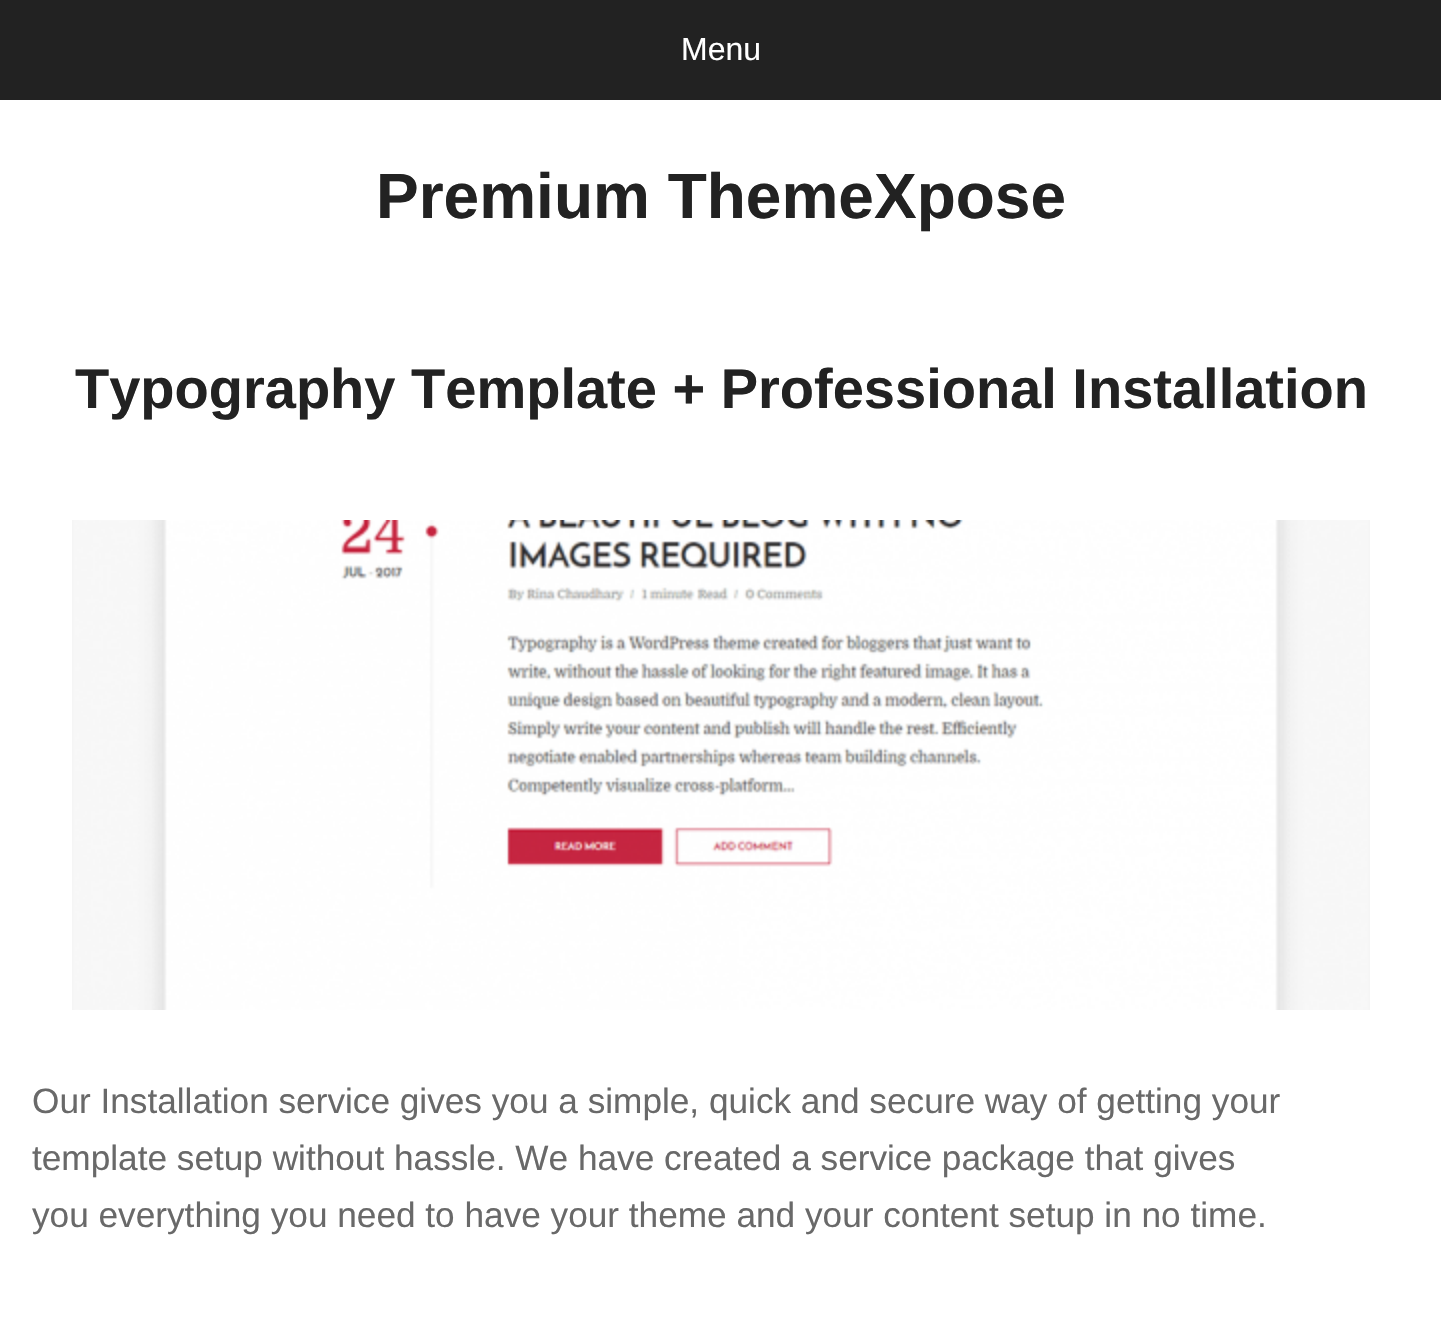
#include "include/core/SkBlurTypes.h"
#include "include/core/SkCanvas.h"
#include "include/core/SkData.h"
#include "include/core/SkFont.h"
#include "include/core/SkFontMgr.h"
#include "include/core/SkImage.h"
#include "include/core/SkMaskFilter.h"
#include "include/core/SkPaint.h"
#include "include/core/SkPathBuilder.h"
#include "include/core/SkTextBlob.h"
#include "include/effects/SkDashPathEffect.h"
#include "include/effects/SkGradientShader.h"
#include "include/utils/SkParsePath.h"

extern sk_sp<SkFontMgr> fontMgr;

static SkFont font(const char* family, int weight, float size, bool italic = false) {
    SkFontStyle style(weight, SkFontStyle::kNormal_Width,
        italic ? SkFontStyle::kItalic_Slant : SkFontStyle::kUpright_Slant);
    SkFont result(fontMgr->matchFamilyStyle(family, style), size);
    result.setSubpixel(true);
    return result;
}

static void drawLabel(SkCanvas* canvas, const char* s, float x, float y, const SkFont& font, SkColor color) {
    SkPaint ink(SkColor4f::FromColor(color));
    ink.setAntiAlias(true);
    canvas->drawString(s, x, y, font, ink);
}

static void fillRect(SkCanvas* canvas, float x, float y, float w, float h, SkColor color) {
    SkPaint ink(SkColor4f::FromColor(color));
    ink.setAntiAlias(true);
    canvas->drawRect(SkRect::MakeXYWH(x, y, w, h), ink);
}

static void drawPhoto(SkCanvas* canvas, const char* path, float x, float y, float w, float h) {
    auto image = SkImages::DeferredFromEncodedData(SkData::MakeFromFileName(path));
    canvas->drawImageRect(image, SkRect::MakeXYWH(x, y, w, h), SkSamplingOptions());
}

void draw(SkCanvas* canvas) {
    SkPaint paint;
    paint.setAntiAlias(true);
    canvas->clear(0xFFFFFFFF);
    fillRect(canvas, 0, 0, 1441, 100, 0xFF222222);
    SkFont font1 = font("Liberation Sans", 400, 32);
    drawLabel(canvas, "Menu", 681, 60, font1, 0xFFFFFFFF);
    SkFont font2 = font("Liberation Sans", 700, 64);
    drawLabel(canvas, "Premium ThemeXpose", 376, 218, font2, 0xFF222222);
    SkFont font3 = font("Liberation Sans", 700, 56);
    drawLabel(canvas, "Typography Template + Professional Installation", 75, 408, font3, 0xFF222222);
    drawPhoto(canvas, "assets/img1.png", 72, 520, 1298, 490);
    SkFont font4 = font("Liberation Sans", 400, 35.2f);
    drawLabel(canvas, "Our Installation service gives you a simple, quick and secure way of getting your", 32, 1113, font4, 0xFF696969);
    drawLabel(canvas, "template setup without hassle. We have created a service package that gives", 32, 1170, font4, 0xFF696969);
    drawLabel(canvas, "you everything you need to have your theme and your content setup in no time.", 32, 1227, font4, 0xFF696969);
}
